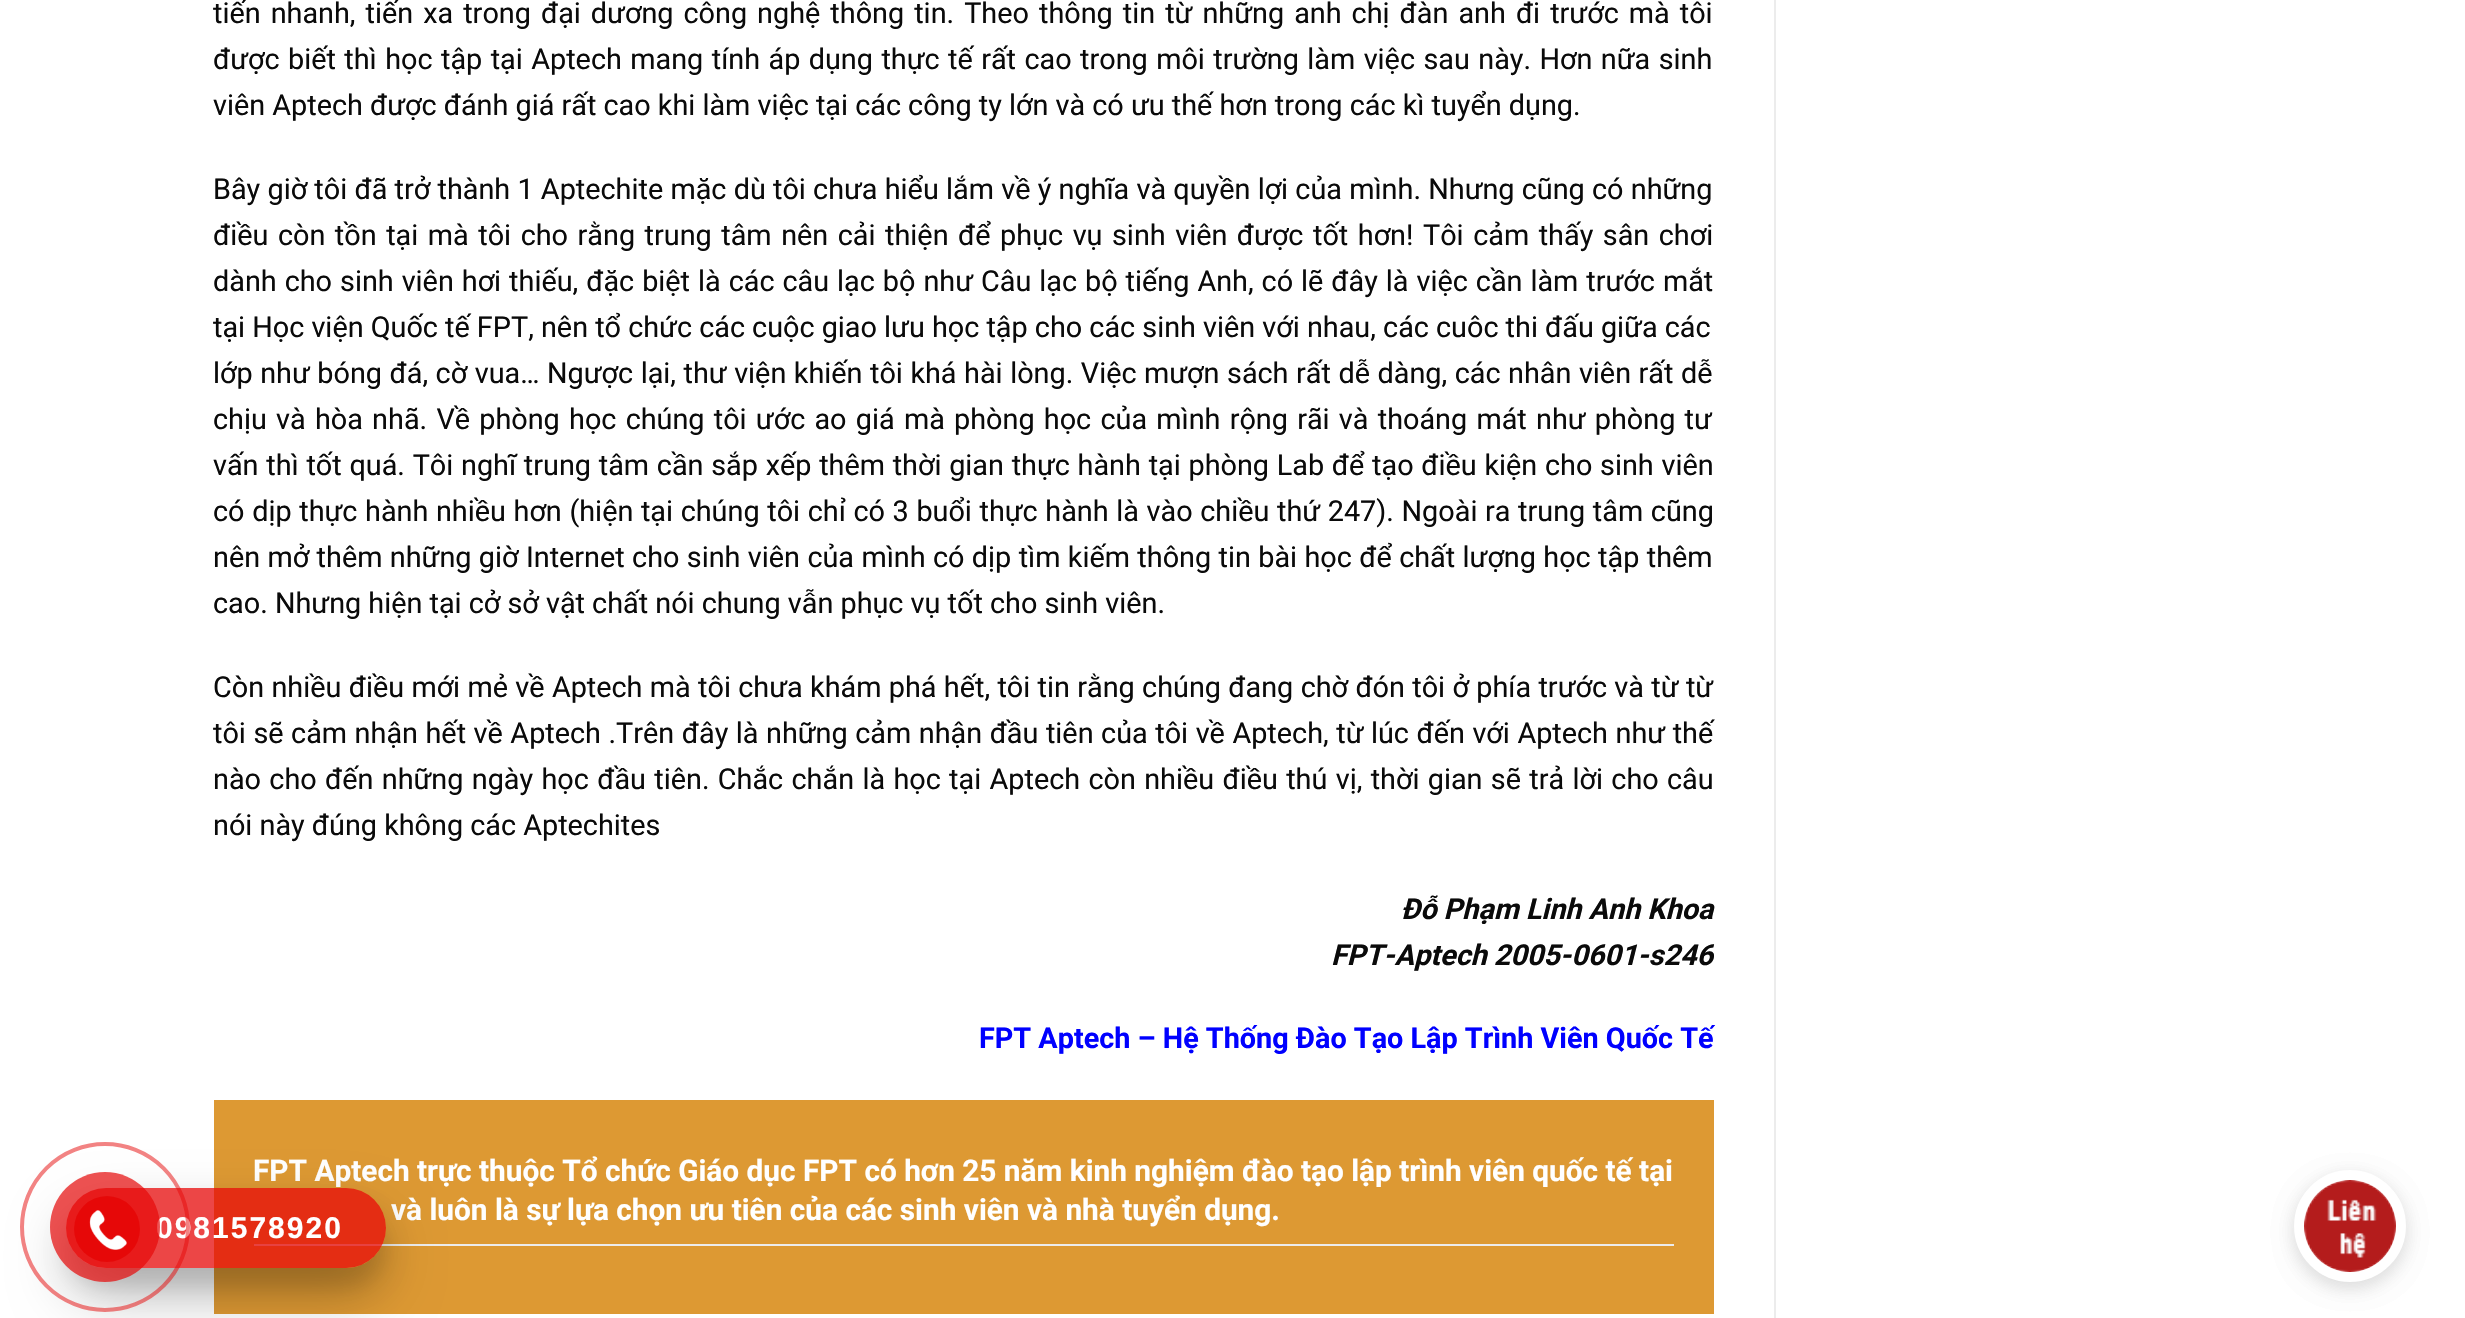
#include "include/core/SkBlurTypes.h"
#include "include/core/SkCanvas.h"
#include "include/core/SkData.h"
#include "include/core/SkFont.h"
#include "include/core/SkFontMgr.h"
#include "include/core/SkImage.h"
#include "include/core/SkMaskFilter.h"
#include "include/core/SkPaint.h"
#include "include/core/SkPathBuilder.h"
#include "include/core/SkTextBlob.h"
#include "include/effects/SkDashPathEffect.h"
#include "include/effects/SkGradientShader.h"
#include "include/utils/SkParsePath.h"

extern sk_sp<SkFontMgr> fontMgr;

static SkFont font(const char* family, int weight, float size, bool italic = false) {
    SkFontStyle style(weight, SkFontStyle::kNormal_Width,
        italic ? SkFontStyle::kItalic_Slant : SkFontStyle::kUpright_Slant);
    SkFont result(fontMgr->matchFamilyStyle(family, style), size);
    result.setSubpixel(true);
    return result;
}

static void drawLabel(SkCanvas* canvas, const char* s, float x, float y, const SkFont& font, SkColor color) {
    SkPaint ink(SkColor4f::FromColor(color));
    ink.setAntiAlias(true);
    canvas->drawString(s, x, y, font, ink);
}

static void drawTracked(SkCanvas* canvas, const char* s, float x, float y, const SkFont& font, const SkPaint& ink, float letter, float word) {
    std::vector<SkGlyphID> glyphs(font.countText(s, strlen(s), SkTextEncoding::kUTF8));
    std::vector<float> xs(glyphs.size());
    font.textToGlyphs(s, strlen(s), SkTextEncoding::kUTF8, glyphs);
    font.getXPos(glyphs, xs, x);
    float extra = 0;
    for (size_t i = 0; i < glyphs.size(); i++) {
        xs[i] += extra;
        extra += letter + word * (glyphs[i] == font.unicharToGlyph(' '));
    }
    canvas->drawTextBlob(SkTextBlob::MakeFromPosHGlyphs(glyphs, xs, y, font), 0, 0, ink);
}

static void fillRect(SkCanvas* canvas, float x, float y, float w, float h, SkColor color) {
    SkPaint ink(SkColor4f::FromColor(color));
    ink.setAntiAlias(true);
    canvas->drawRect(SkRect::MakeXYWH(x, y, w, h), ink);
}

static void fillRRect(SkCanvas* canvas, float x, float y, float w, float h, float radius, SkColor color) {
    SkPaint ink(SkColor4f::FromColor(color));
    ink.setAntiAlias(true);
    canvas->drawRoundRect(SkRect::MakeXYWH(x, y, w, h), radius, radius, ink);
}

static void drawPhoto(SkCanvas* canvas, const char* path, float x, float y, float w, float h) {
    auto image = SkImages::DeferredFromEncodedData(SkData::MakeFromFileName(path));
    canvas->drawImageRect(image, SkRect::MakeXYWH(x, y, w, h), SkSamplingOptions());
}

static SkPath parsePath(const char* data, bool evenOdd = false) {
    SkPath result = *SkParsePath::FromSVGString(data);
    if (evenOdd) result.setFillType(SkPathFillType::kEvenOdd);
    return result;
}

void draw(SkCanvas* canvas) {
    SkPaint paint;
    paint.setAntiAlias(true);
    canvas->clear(0xFFFFFFFF);
    SkFont font1 = font("Roboto", 400, 28.8f);
    paint.setColor(0xFF0A0A0A);
    drawTracked(canvas, "tiến nhanh, tiến xa trong đại dương công nghệ thông tin. Theo thông tin từ những anh chị đàn anh đi trước mà tôi", 213, 23, font1, paint, 0, 2.9f);
    drawTracked(canvas, "được biết thì học tập tại Aptech mang tính áp dụng thực tế rất cao trong môi trường làm việc sau này. Hơn nữa sinh", 213, 69, font1, paint, 0, 1.3f);
    drawLabel(canvas, "viên Aptech được đánh giá rất cao khi làm việc tại các công ty lớn và có ưu thế hơn trong các kì tuyển dụng.", 213, 115, font1, 0xFF0A0A0A);
    drawTracked(canvas, "Bây giờ tôi đã trở thành 1 Aptechite mặc dù tôi chưa hiểu lắm về ý nghĩa và quyền lợi của mình. Nhưng cũng có những", 213, 199, font1, paint, 0, 0.1f);
    drawTracked(canvas, "điều còn tồn tại mà tôi cho rằng trung tâm nên cải thiện để phục vụ sinh viên được tốt hơn! Tôi cảm thấy sân chơi", 213, 245, font1, paint, 0, 2.4f);
    drawTracked(canvas, "dành cho sinh viên hơi thiếu, đặc biệt là các câu lạc bộ như Câu lạc bộ tiếng Anh, có lẽ đây là việc cần làm trước mắt", 213, 291, font1, paint, 0, 0.85f);
    drawLabel(canvas, "tại Học viện Quốc tế FPT, nên tổ chức các cuộc giao lưu học tập cho các sinh viên với nhau, các cuôc thi đấu giữa các", 213, 337, font1, 0xFF0A0A0A);
    drawTracked(canvas, "lớp như bóng đá, cờ vua… Ngược lại, thư viện khiến tôi khá hài lòng. Việc mượn sách rất dễ dàng, các nhân viên rất dễ", 213, 383, font1, paint, 0, 0.4f);
    drawTracked(canvas, "chịu và hòa nhã. Về phòng học chúng tôi ước ao giá mà phòng học của mình rộng rãi và thoáng mát như phòng tư", 213, 429, font1, paint, 0, 2.1f);
    drawTracked(canvas, "vấn thì tốt quá. Tôi nghĩ trung tâm cần sắp xếp thêm thời gian thực hành tại phòng Lab để tạo điều kiện cho sinh viên", 213, 475, font1, paint, 0, 0.6f);
    drawTracked(canvas, "có dịp thực hành nhiều hơn (hiện tại chúng tôi chỉ có 3 buổi thực hành là vào chiều thứ 247). Ngoài ra trung tâm cũng", 213, 521, font1, paint, 0, 0.5f);
    drawTracked(canvas, "nên mở thêm những giờ Internet cho sinh viên của mình có dịp tìm kiếm thông tin bài học để chất lượng học tập thêm", 213, 567, font1, paint, 0, 0.25f);
    drawLabel(canvas, "cao. Nhưng hiện tại cở sở vật chất nói chung vẫn phục vụ tốt cho sinh viên.", 213, 613, font1, 0xFF0A0A0A);
    drawTracked(canvas, "Còn nhiều điều mới mẻ về Aptech mà tôi chưa khám phá hết, tôi tin rằng chúng đang chờ đón tôi ở phía trước và từ từ", 213, 697, font1, paint, 0, 0.2f);
    drawTracked(canvas, "tôi sẽ cảm nhận hết về Aptech .Trên đây là những cảm nhận đầu tiên của tôi về Aptech, từ lúc đến với Aptech như thế", 213, 743, font1, paint, 0, 0.4f);
    drawTracked(canvas, "nào cho đến những ngày học đầu tiên. Chắc chắn là học tại Aptech còn nhiều điều thú vị, thời gian sẽ trả lời cho câu", 213, 789, font1, paint, 0, 1.2f);
    drawLabel(canvas, "nói này đúng không các Aptechites", 213, 835, font1, 0xFF0A0A0A);
    SkFont font2 = font("Roboto", 700, 28.8f, true);
    drawLabel(canvas, "Đỗ Phạm Linh Anh Khoa", 1401, 919, font2, 0xFF0A0A0A);
    drawLabel(canvas, "FPT-Aptech 2005-0601-s246", 1331, 965, font2, 0xFF0A0A0A);
    SkFont font3 = font("Roboto", 700, 28.8f);
    drawLabel(canvas, "FPT Aptech – Hệ Thống Đào Tạo Lập Trình Viên Quốc Tế", 979, 1048, font3, 0xFF0000FF);
    fillRect(canvas, 214, 1100, 1500, 214, 0xFFDD9933);
    fillRect(canvas, 254, 1244, 1420, 2, 0xFFECECEC);
    SkFont font4 = font("Roboto", 700, 29.8f);
    drawLabel(canvas, "FPT Aptech trực thuộc Tổ chức Giáo dục FPT có hơn 25 năm kinh nghiệm đào tạo lập trình viên quốc tế tại", 253, 1181, font4, 0xFFFFFFFF);
    drawLabel(canvas, "và luôn là sự lựa chọn ưu tiên của các sinh viên và nhà tuyển dụng.", 391, 1220, font4, 0xFFFFFFFF);
    fillRect(canvas, 1774, 0, 2, 1318, 0xFFECECEC);
    drawPhoto(canvas, "assets/img2.png", 2307, 1182, 9, 9);
    paint.setColor(0x14000000);
    paint.setMaskFilter(SkMaskFilter::MakeBlur(kNormal_SkBlurStyle, 10));
    canvas->drawRoundRect(SkRect::MakeXYWH(2294, 1176, 112, 112), 56, 56, paint);
    paint.setMaskFilter(nullptr);
    paint.setMaskFilter(SkMaskFilter::MakeBlur(kNormal_SkBlurStyle, 10));
    canvas->drawRoundRect(SkRect::MakeXYWH(2294, 1176, 112, 112), 56, 56, paint);
    paint.setMaskFilter(nullptr);
    paint.setColor(0xFFFFFFFF);
    canvas->drawCircle(2350, 1226, 51, paint);
    paint.setStroke(true);
    paint.setStrokeWidth(10);
    canvas->drawCircle(2350, 1226, 51, paint);
    drawPhoto(canvas, "assets/img1.png", 2304, 1180, 92, 92);
    canvas->save();
    canvas->clipPath(parsePath("M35 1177H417V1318H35ZM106 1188H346C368 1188 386 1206 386 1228C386 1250 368 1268 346 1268H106C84 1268 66 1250 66 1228C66 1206 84 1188 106 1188Z", true), true);
    paint.setStroke(false);
    paint.setColor(0x1A000000);
    paint.setMaskFilter(SkMaskFilter::MakeBlur(kNormal_SkBlurStyle, 10));
    canvas->drawRoundRect(SkRect::MakeXYWH(66, 1208, 320, 80), 40, 40, paint);
    paint.setMaskFilter(nullptr);
    canvas->restore();
    canvas->save();
    canvas->clipPath(parsePath("M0 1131H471V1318H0ZM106 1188H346C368 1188 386 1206 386 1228C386 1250 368 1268 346 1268H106C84 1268 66 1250 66 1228C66 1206 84 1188 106 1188Z", true), true);
    paint.setColor(0x40000000);
    paint.setMaskFilter(SkMaskFilter::MakeBlur(kNormal_SkBlurStyle, 28));
    canvas->drawRoundRect(SkRect::MakeXYWH(66, 1216, 320, 80), 40, 40, paint);
    paint.setMaskFilter(nullptr);
    canvas->restore();
    fillRRect(canvas, 66, 1188, 320, 80, 40, 0xBFE60808);
    SkFont font5 = font("Liberation Sans", 700, 30);
    paint.setColor(0xFFFFFFFF);
    drawTracked(canvas, "0981578920", 156, 1238, font5, paint, 2, 0);
    paint.setStroke(true);
    paint.setStrokeWidth(4);
    paint.setColor(0x80E60808);
    canvas->drawCircle(105, 1227, 83, paint);
    paint.setStroke(false);
    paint.setColor(0xB3E60808);
    canvas->drawCircle(105, 1227, 55, paint);
    paint.setColor(0xFFE60808);
    canvas->drawCircle(107, 1229, 33, paint);
    drawPhoto(canvas, "assets/img3.png", 89, 1210, 38, 40);
}
